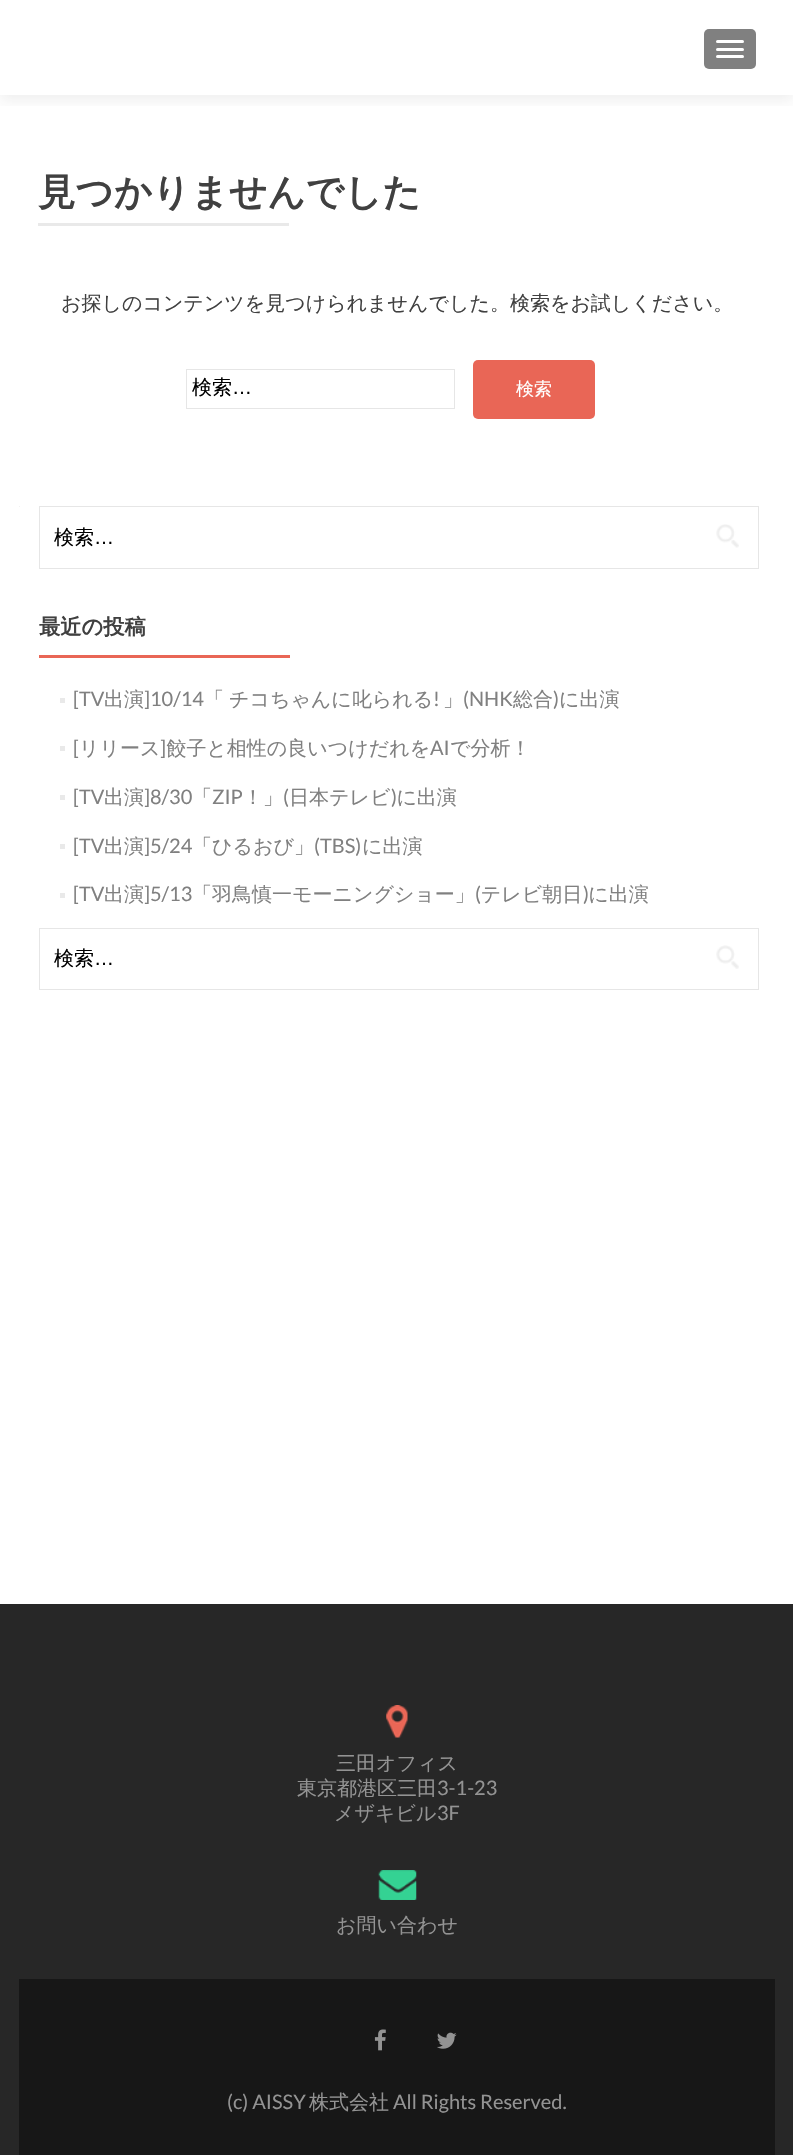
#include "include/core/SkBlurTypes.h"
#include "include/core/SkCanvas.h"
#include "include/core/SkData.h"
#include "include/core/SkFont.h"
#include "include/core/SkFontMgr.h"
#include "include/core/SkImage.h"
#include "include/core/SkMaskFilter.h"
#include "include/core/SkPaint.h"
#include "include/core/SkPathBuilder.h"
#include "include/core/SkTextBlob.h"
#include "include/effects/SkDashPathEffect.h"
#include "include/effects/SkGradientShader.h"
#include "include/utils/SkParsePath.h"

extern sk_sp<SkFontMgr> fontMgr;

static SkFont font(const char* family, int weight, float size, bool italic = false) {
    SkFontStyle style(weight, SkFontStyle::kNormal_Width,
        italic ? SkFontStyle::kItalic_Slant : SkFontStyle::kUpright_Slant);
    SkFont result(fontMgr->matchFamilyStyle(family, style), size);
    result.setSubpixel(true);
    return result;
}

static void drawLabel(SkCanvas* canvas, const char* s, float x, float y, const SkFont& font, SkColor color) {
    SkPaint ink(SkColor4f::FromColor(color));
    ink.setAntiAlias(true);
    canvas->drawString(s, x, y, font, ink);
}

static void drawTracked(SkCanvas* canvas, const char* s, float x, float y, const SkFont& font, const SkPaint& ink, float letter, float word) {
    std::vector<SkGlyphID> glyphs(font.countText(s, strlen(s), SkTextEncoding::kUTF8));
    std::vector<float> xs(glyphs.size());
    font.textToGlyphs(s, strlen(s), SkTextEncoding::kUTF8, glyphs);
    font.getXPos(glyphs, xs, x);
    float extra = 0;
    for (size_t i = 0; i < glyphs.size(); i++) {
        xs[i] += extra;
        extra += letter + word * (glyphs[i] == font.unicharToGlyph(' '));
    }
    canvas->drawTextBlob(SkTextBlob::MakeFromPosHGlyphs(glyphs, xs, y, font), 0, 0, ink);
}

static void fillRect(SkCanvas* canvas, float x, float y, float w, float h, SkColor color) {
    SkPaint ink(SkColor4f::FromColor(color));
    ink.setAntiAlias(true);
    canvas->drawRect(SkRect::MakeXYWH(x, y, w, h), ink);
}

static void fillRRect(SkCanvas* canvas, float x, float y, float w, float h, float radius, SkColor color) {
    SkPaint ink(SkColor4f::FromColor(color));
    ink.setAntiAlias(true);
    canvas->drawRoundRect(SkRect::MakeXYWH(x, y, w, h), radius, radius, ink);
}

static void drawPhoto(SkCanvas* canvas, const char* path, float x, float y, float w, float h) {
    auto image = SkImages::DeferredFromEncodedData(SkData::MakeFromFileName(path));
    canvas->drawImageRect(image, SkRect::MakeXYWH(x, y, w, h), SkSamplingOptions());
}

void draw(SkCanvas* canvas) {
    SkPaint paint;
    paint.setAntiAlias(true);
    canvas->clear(0xFFFFFFFF);
    canvas->save();
    canvas->clipRect(SkRect::MakeXYWH(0, 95, 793, 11));
    paint.setColor(0x14323232);
    paint.setMaskFilter(SkMaskFilter::MakeBlur(kNormal_SkBlurStyle, 7));
    canvas->drawRect(SkRect::MakeXYWH(0, 6, 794, 95), paint);
    paint.setMaskFilter(nullptr);
    canvas->restore();
    fillRRect(canvas, 704, 29, 52, 40, 5, 0xFF808080);
    fillRRect(canvas, 716, 40, 28, 3, 1.5f, 0xFFFFFFFF);
    fillRRect(canvas, 716, 48, 28, 3, 1.5f, 0xFFFFFFFF);
    fillRRect(canvas, 716, 55, 28, 3, 1.5f, 0xFFFFFFFF);
    SkFont font1 = font("WenQuanYi Zen Hei", 700, 37.5f);
    drawLabel(canvas, "見つかりませんでした", 38, 205, font1, 0xFF404040);
    fillRect(canvas, 38, 223, 251, 3, 0xFFE9E9E9);
    SkFont font2 = font("WenQuanYi Zen Hei", 500, 20);
    drawLabel(canvas, "お探しのコンテンツを見つけられませんでした。検索をお試しください。", 61, 310, font2, 0xFF404040);
    paint.setStroke(true);
    paint.setStrokeWidth(1);
    paint.setColor(0xFFE6E6E6);
    canvas->drawRect(SkRect::MakeXYWH(186.5f, 369.5f, 268, 39), paint);
    drawLabel(canvas, "検索", 192, 394, font2, 0xFF000000);
    SkFont font3 = font("Liberation Sans", 400, 20);
    drawLabel(canvas, "…", 232, 394, font3, 0xFF000000);
    fillRRect(canvas, 473, 360, 122, 59, 5, 0xFFE96656);
    SkFont font4 = font("WenQuanYi Zen Hei", 500, 18);
    drawLabel(canvas, "検索", 516, 395, font4, 0xFFFFFFFF);
    fillRect(canvas, 19, 506, 1, 1, 0xFFF2F2F2);
    canvas->drawRect(SkRect::MakeXYWH(39.5f, 506.5f, 719, 62), paint);
    drawLabel(canvas, "検索", 54, 544, font2, 0xFF000000);
    drawLabel(canvas, "…", 94, 544, font3, 0xFF000000);
    drawPhoto(canvas, "assets/img1.png", 716, 524, 23, 24);
    SkFont font5 = font("WenQuanYi Zen Hei", 700, 21.25f);
    drawLabel(canvas, "最近の投稿", 39, 634, font5, 0xFF404040);
    fillRect(canvas, 39, 655, 251, 3, 0xFFE96656);
    SkFont font6 = font("Lato", 400, 20);
    drawLabel(canvas, "[TV", 73, 706, font6, 0xFF808080);
    drawLabel(canvas, "出演", 104, 706, font2, 0xFF808080);
    drawLabel(canvas, "]10/14", 144, 706, font6, 0xFF808080);
    paint.setStroke(false);
    paint.setColor(0xFF808080);
    drawTracked(canvas, "「 チコちゃんに叱られる", 204, 706, font2, paint, 0, -1);
    drawLabel(canvas, "(NHK", 463, 706, font6, 0xFF808080);
    drawLabel(canvas, "総合 に出演", 513, 706, font2, 0xFF808080);
    fillRect(canvas, 60, 698, 5, 5, 0xFFE9E9E9);
    drawLabel(canvas, "!", 433, 706, font6, 0xFF808080);
    drawLabel(canvas, "」", 443, 706, font2, 0xFF808080);
    drawLabel(canvas, ")", 553, 706, font6, 0xFF808080);
    drawLabel(canvas, "[", 73, 755, font6, 0xFF808080);
    drawLabel(canvas, "リリース 餃子と相性の良いつけだれを", 79, 755, font2, 0xFF808080);
    drawLabel(canvas, "で分析！", 450, 755, font2, 0xFF808080);
    fillRect(canvas, 60, 746, 5, 5, 0xFFE9E9E9);
    drawLabel(canvas, "]", 160, 755, font6, 0xFF808080);
    drawLabel(canvas, "AI", 430, 755, font6, 0xFF808080);
    drawLabel(canvas, "[TV", 73, 804, font6, 0xFF808080);
    drawLabel(canvas, "出演", 104, 804, font2, 0xFF808080);
    drawLabel(canvas, "]8/30", 144, 804, font6, 0xFF808080);
    drawLabel(canvas, "「", 192, 804, font2, 0xFF808080);
    drawLabel(canvas, "！」 日本テレビ に出演", 243, 804, font2, 0xFF808080);
    fillRect(canvas, 60, 795, 5, 5, 0xFFE9E9E9);
    drawLabel(canvas, "ZIP", 212, 804, font6, 0xFF808080);
    drawLabel(canvas, "(", 283, 804, font6, 0xFF808080);
    drawLabel(canvas, ")", 391, 804, font6, 0xFF808080);
    fillRect(canvas, 60, 844, 5, 5, 0xFFE9E9E9);
    drawLabel(canvas, "[TV", 73, 853, font6, 0xFF808080);
    drawLabel(canvas, "出演", 104, 853, font2, 0xFF808080);
    drawLabel(canvas, "]5/24", 144, 853, font6, 0xFF808080);
    drawLabel(canvas, "「ひるおび」", 192, 853, font2, 0xFF808080);
    drawLabel(canvas, "(TBS)", 314, 853, font6, 0xFF808080);
    drawLabel(canvas, "に出演", 362, 853, font2, 0xFF808080);
    drawLabel(canvas, "[TV", 73, 901, font6, 0xFF808080);
    drawLabel(canvas, "出演", 104, 901, font2, 0xFF808080);
    drawLabel(canvas, "]5/13", 144, 901, font6, 0xFF808080);
    drawLabel(canvas, "「羽鳥慎一モーニングショー」 テレビ朝日 に出演", 192, 901, font2, 0xFF808080);
    fillRect(canvas, 60, 893, 5, 5, 0xFFE9E9E9);
    drawLabel(canvas, "(", 475, 901, font6, 0xFF808080);
    drawLabel(canvas, ")", 583, 901, font6, 0xFF808080);
    paint.setStroke(true);
    paint.setColor(0xFFE6E6E6);
    canvas->drawRect(SkRect::MakeXYWH(39.5f, 928.5f, 719, 61), paint);
    drawLabel(canvas, "検索", 54, 965, font2, 0xFF000000);
    drawLabel(canvas, "…", 94, 965, font3, 0xFF000000);
    drawPhoto(canvas, "assets/img2.png", 716, 945, 23, 24);
    fillRect(canvas, 0, 1604, 793, 551, 0xFF272727);
    drawPhoto(canvas, "assets/img3.png", 386, 1705, 22, 33);
    drawLabel(canvas, "三田オフィス", 336, 1770, font2, 0xFF939393);
    drawLabel(canvas, "東京都港区三田", 297, 1795, font2, 0xFF939393);
    drawLabel(canvas, "3-1-23", 437, 1795, font6, 0xFF939393);
    drawLabel(canvas, "メザキビル", 334, 1820, font2, 0xFF939393);
    drawLabel(canvas, "3F", 437, 1820, font6, 0xFF939393);
    drawPhoto(canvas, "assets/img4.png", 378, 1870, 39, 30);
    drawLabel(canvas, "お問い合わせ", 336, 1932, font2, 0xFF939393);
    fillRect(canvas, 19, 1979, 756, 176, 0xFF171717);
    drawPhoto(canvas, "assets/img5.png", 374, 2029, 12, 22);
    drawPhoto(canvas, "assets/img6.png", 437, 2032, 20, 17);
    drawLabel(canvas, "(c) AISSY", 227, 2109, font6, 0xFF939393);
    drawLabel(canvas, "株式会社", 309, 2109, font2, 0xFF939393);
    drawLabel(canvas, "All Rights Reserved.", 393, 2109, font6, 0xFF939393);
}
